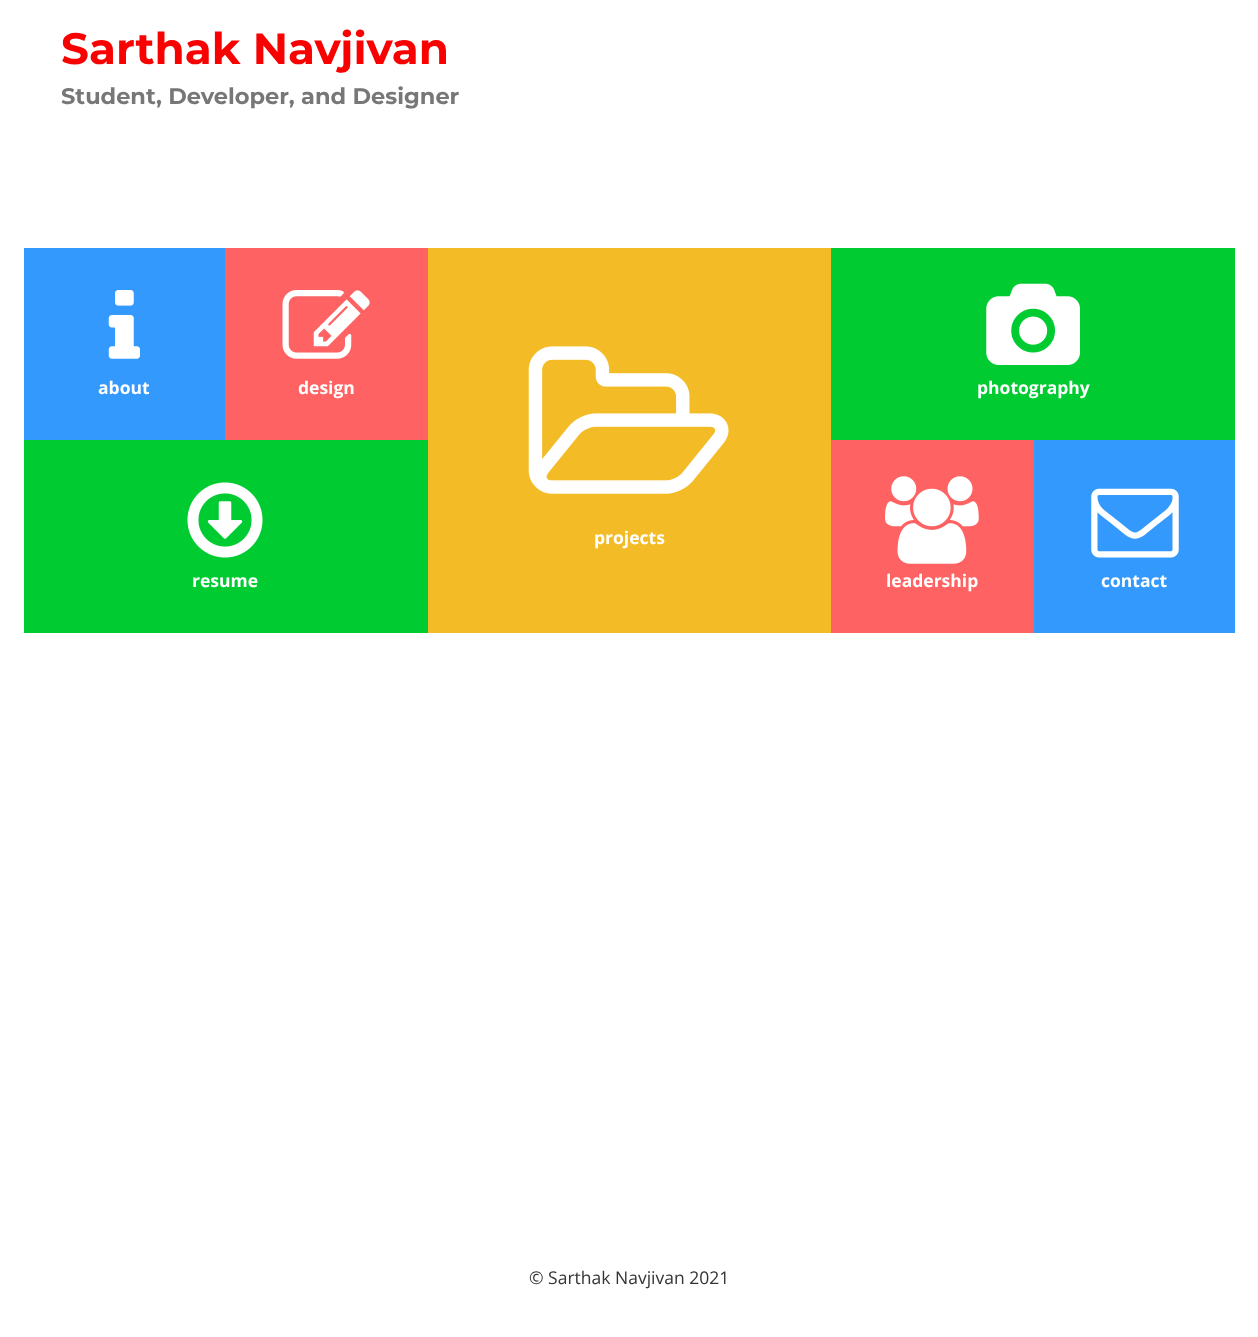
<svg xmlns="http://www.w3.org/2000/svg" width="1258" height="1337">
<style>
.a{font:bold 43.75px Montserrat;fill:#f90101}
.b{font:bold 22.5px Montserrat;fill:#777}
.c{font:bold 17.5px Open Sans;fill:#fff}
.d{font:17.5px Open Sans;fill:#333}
</style>
<rect width="100%" height="100%" fill="#fff"/>
<path fill="#3399fd" d="M24 248h201v192H24z"/>
<image href="1.png" x="108" y="290" width="32" height="69"/>
<path fill="#fe6262" d="M225 248h203v192H225z"/>
<image href="2.png" x="282" y="290" width="88" height="69"/>
<path fill="#00cc31" d="M24 440h404v193H24z"/>
<image href="3.png" x="187" y="482" width="76" height="76"/>
<path fill="#f3bc27" d="M428 248h403v385H428z"/>
<image href="4.png" x="528" y="346" width="201" height="148"/>
<path fill="#00cc31" d="M831 248h404v192H831z"/>
<image href="5.png" x="986" y="283" width="94" height="82"/>
<path fill="#fe6262" d="M831 440h203v193H831z"/>
<image href="6.png" x="885" y="476" width="94" height="88"/>
<path fill="#3399fd" d="M1034 440h201v193H1034z"/>
<image href="7.png" x="1091" y="488" width="88" height="70"/>
<text class="a" x="61" y="64">Sarthak Navjivan</text>
<text class="b" x="61" y="104">Student, Developer, and Designer</text>
<text class="c" x="98" y="394">about</text>
<text class="c" x="298" y="394">design</text>
<text class="c" x="192" y="587">resume</text>
<text class="c" x="594" y="544">projects</text>
<text class="c" x="977" y="394">photography</text>
<text class="c" x="886" y="587">leadership</text>
<text class="c" x="1101" y="587">contact</text>
<text class="d" x="529" y="1284">© Sarthak Navjivan 2021</text>
</svg>
